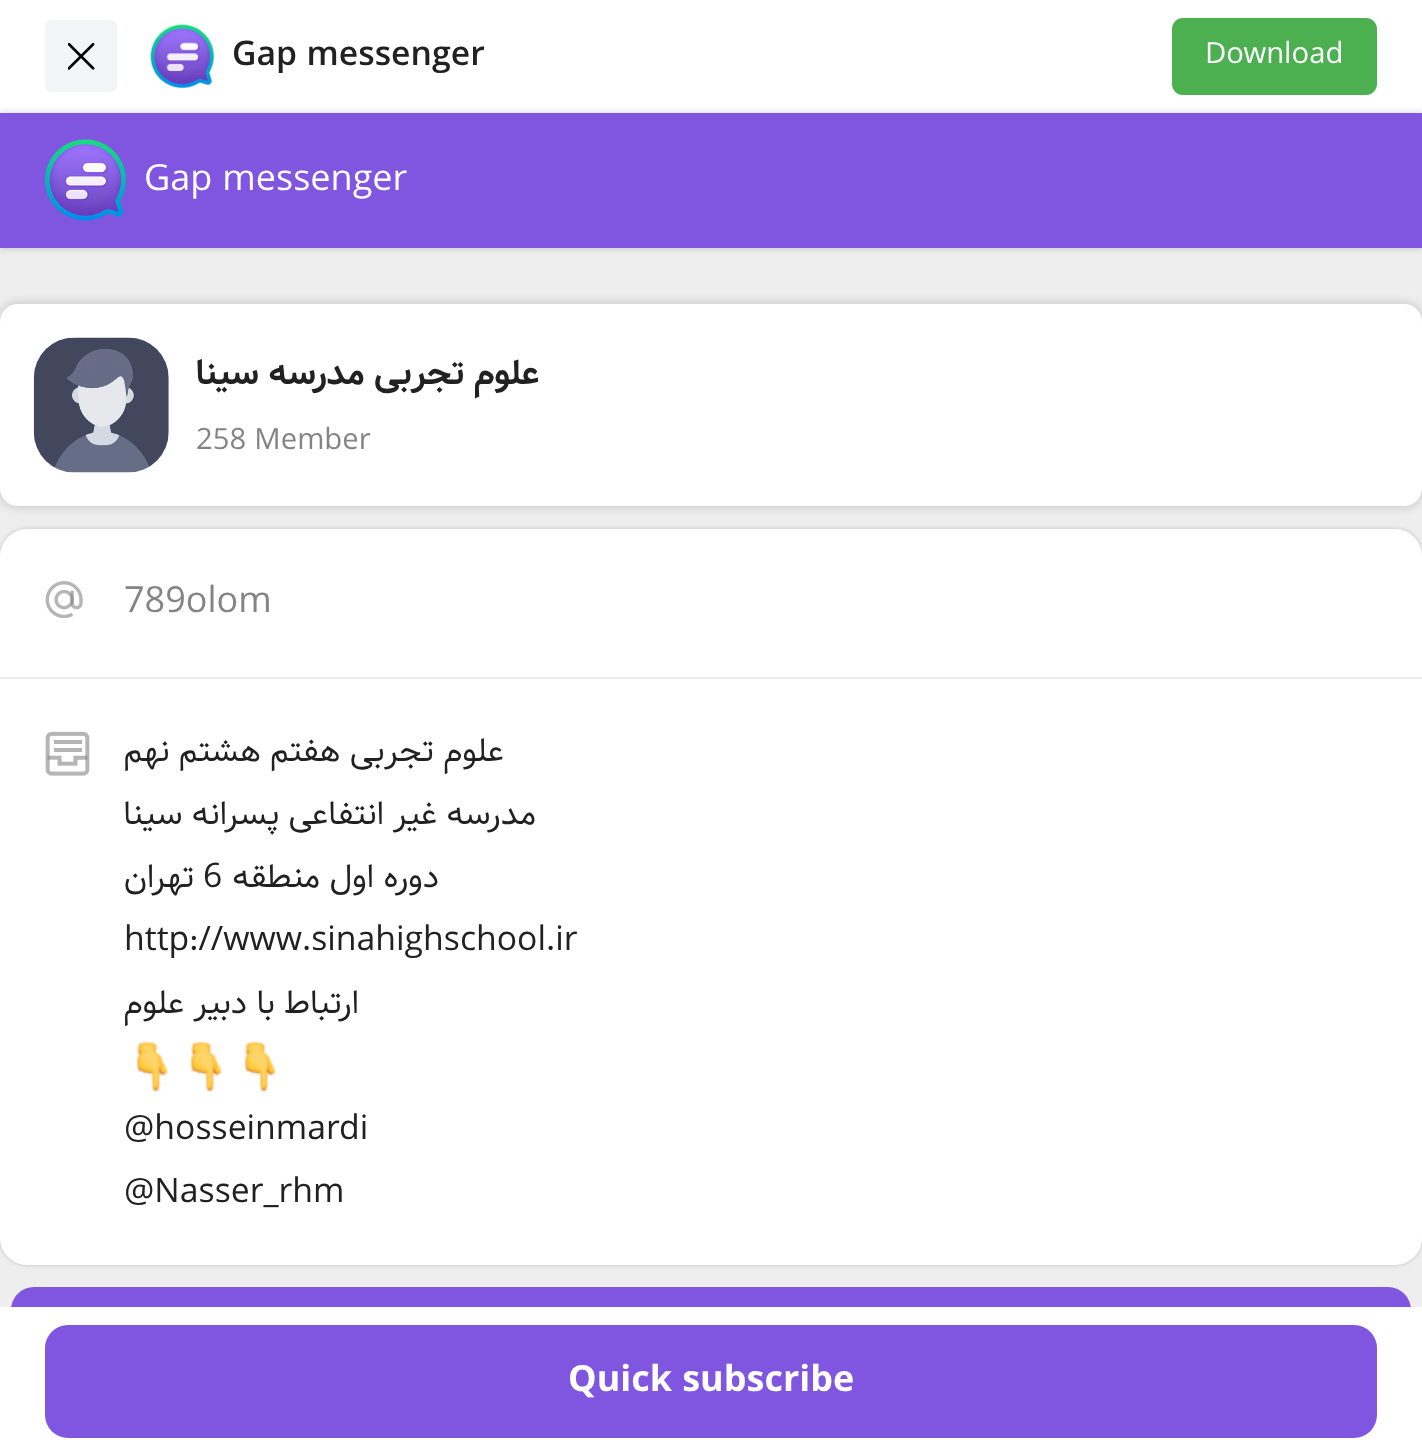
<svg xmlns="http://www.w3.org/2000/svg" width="1422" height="1454">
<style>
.a{font:500 33.75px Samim;fill:#212121}
.b{font:29.25px Samim;fill:#fff}
.c{font:36px Samim;fill:#fff}
.d{font:bold 36px Samim;direction:rtl;fill:#212121}
.e{font:29.25px Samim;fill:#848385}
.f{font:36px Samim;fill:#848385}
.g{font:33.75px Samim;direction:rtl;fill:#212121}
.h{font:33.75px Samim;fill:#212121}
.i{font:bold 36px Samim;fill:#fff}
</style>
<rect width="100%" height="100%" fill="#eee"/>
<path fill="#fff" d="M0 0h1422v113H0z"/>
<rect fill="#f4f5f7" x="45" y="20" width="72" height="72" rx="7"/>
<image href="1.png" x="68" y="43" width="27" height="27"/>
<image href="2.png" x="150" y="24" width="64" height="64"/>
<rect fill="#4cb050" x="1172" y="18" width="205" height="77" rx="11"/>
<path fill="#00000033" filter="blur(3.5px)" d="M0 113h1422v135H0z"/>
<path fill="#8056e0" d="M0 113h1422v135H0z"/>
<image href="3.png" x="45" y="139" width="81" height="82"/>
<rect fill="#00000033" filter="blur(5.5px)" y="304" width="1422" height="202" rx="18"/>
<rect fill="#fff" y="304" width="1422" height="202" rx="18"/>
<image href="4.png" x="33" y="337" width="136" height="136"/>
<rect fill="#0000002e" filter="blur(2px)" y="529" width="1422" height="736" rx="27"/>
<rect fill="#fff" y="529" width="1422" height="736" rx="27"/>
<path fill="#ebebeb" d="M0 677h1422v2H0z"/>
<image href="5.png" x="45" y="581" width="38" height="38"/>
<image href="6.png" x="45" y="731" width="45" height="45"/>
<image href="7.png" x="135" y="1041" width="33" height="52"/>
<image href="7.png" x="189" y="1041" width="33" height="52"/>
<image href="8.png" x="243" y="1041" width="33" height="52"/>
<rect fill="#8056e0" x="11" y="1287" width="1400" height="86" rx="23"/>
<path fill="#fff" d="M0 1307h1422v147H0z"/>
<rect fill="#8056e0" x="45" y="1325" width="1332" height="113" rx="23"/>
<text class="a" x="232" y="65">Gap messenger</text>
<text class="b" x="1205" y="63">Download</text>
<text class="c" x="144" y="190">Gap messenger</text>
<text class="d" x="539" y="384">علوم تجربی مدرسه سینا</text>
<text class="e" x="196" y="449">258 Member</text>
<text class="f" x="124" y="612">789olom</text>
<text class="g" x="504" y="761">علوم تجربی هفتم هشتم نهم</text>
<text class="g" x="536" y="824">مدرسه غیر انتفاعی پسرانه سینا</text>
<text class="g" x="194" y="887">تهران</text>
<text class="h" x="203" y="887">6</text>
<text class="g" x="439" y="887">دوره اول منطقه</text>
<text class="h" x="124" y="950">http://www.sinahighschool.ir</text>
<text class="g" x="359" y="1013">ارتباط با دبیر علوم</text>
<text class="h" x="124" y="1139">@hosseinmardi</text>
<text class="h" x="124" y="1202">@Nasser_rhm</text>
<text class="i" x="568" y="1391">Quick subscribe</text>
</svg>
